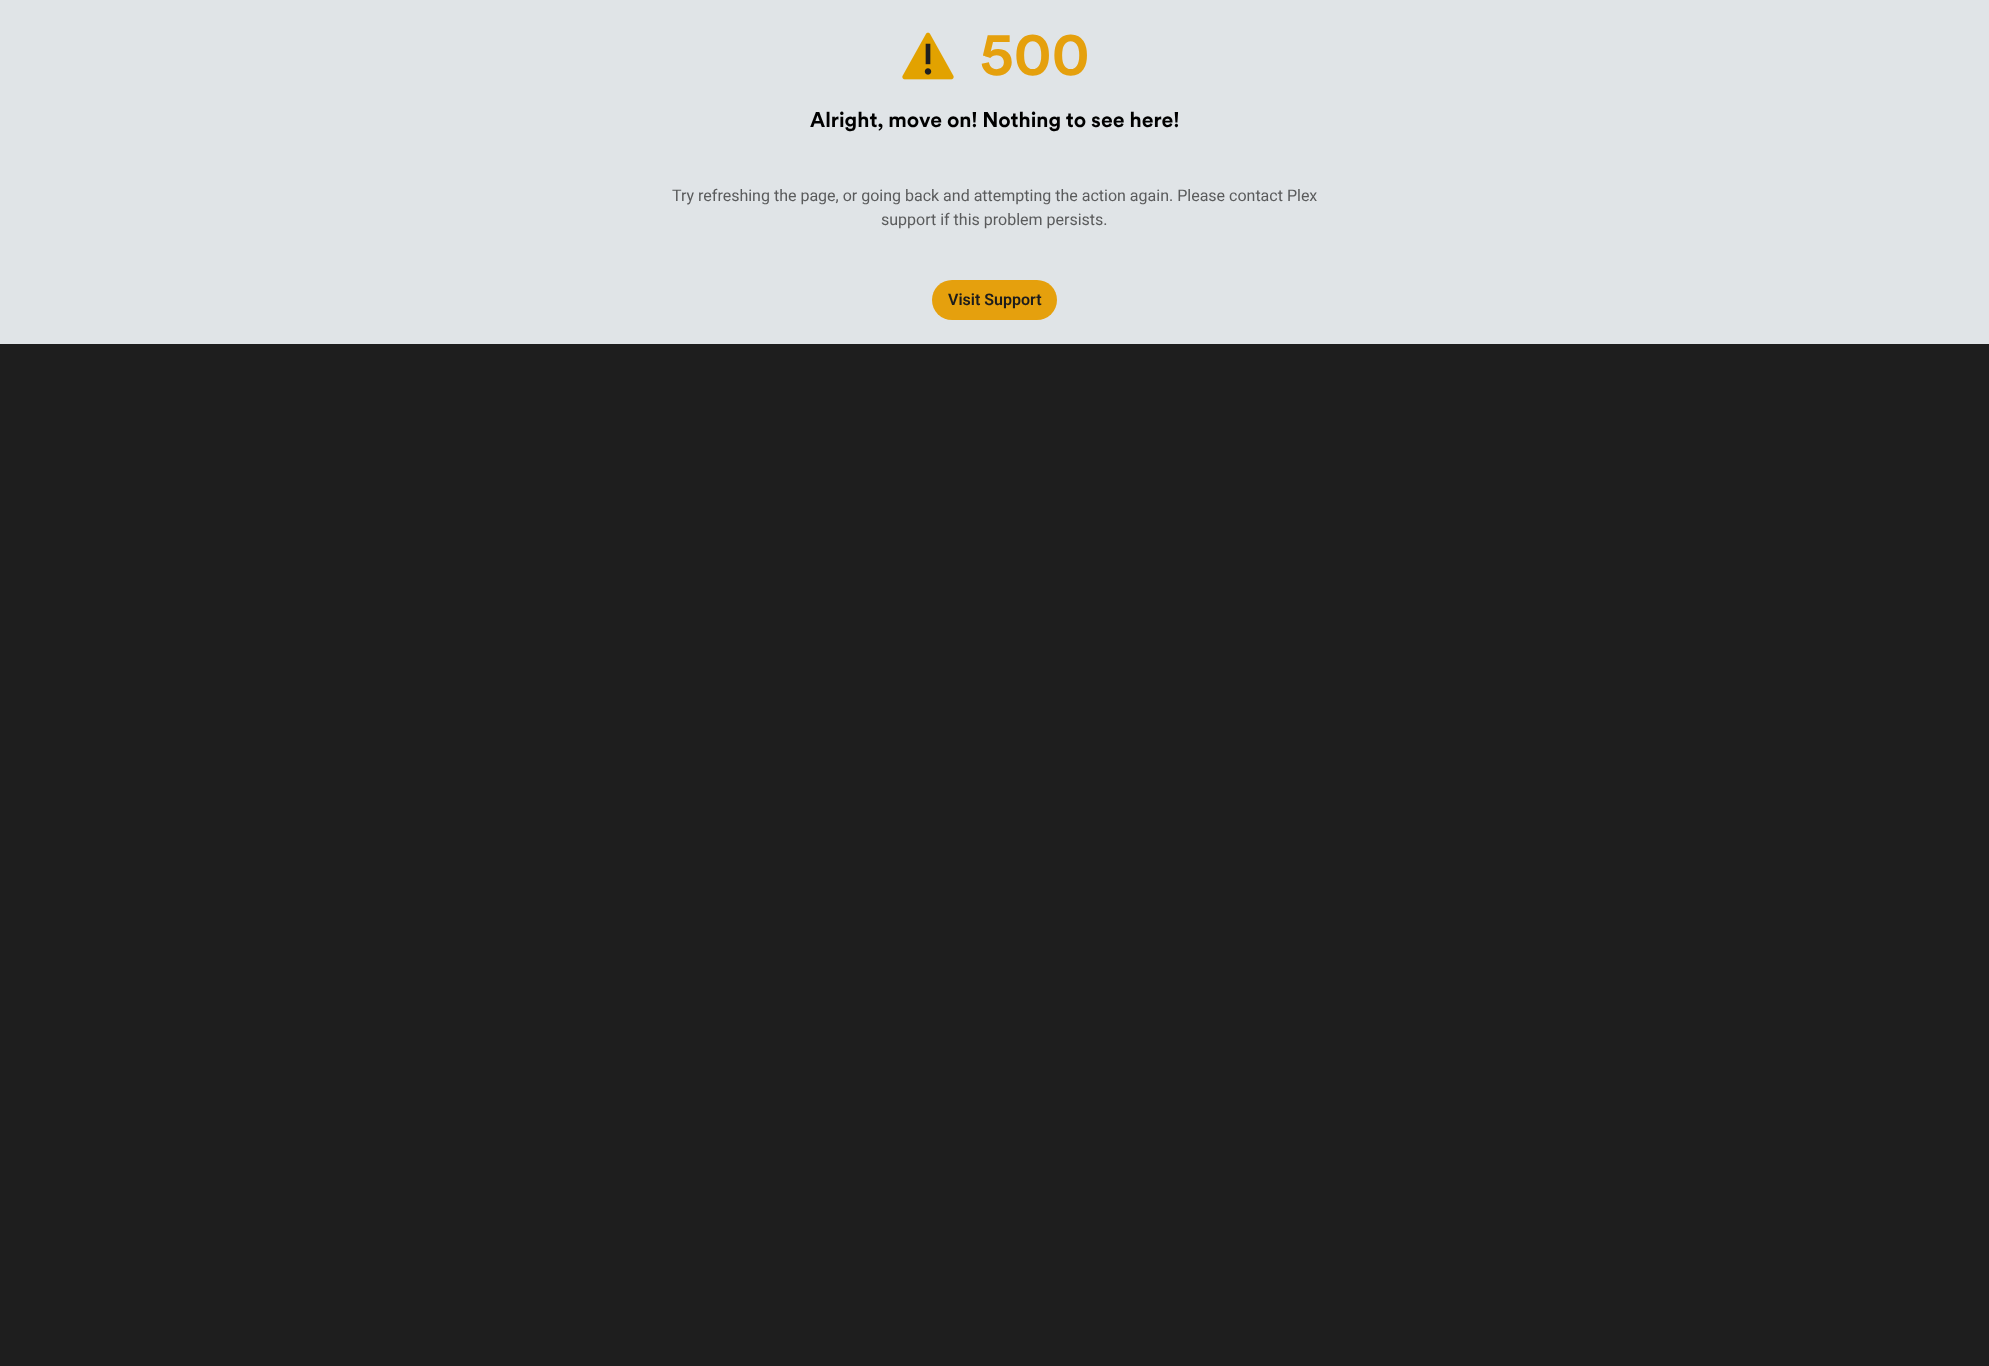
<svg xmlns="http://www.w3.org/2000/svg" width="1989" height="1366">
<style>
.a{font:bold 56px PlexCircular;fill:#e5a00d}
.b{font:bold 21px PlexCircular;fill:#000}
.c{font:16px Roboto;fill:#5a5b5c}
.d{font:600 16px Roboto;fill:#1c1c1c}
</style>
<rect width="100%" height="100%" fill="#1e1e1e"/>
<path fill="#e0e4e7" d="M0 0h1989v344H0z"/>
<image href="1.png" x="902" y="32" width="52" height="48"/>
<rect fill="#e5a00d" x="932" y="280" width="125" height="40" rx="20"/>
<text class="a" x="980" y="75">500</text>
<text class="b" x="810" y="127">Alright, move on! Nothing to see here!</text>
<text class="c" x="672" y="201">Try refreshing the page, or going back and attempting the action again. Please contact Plex</text>
<text class="c" x="881" y="225">support if this problem persists.</text>
<text class="d" x="948" y="305">Visit Support</text>
</svg>
